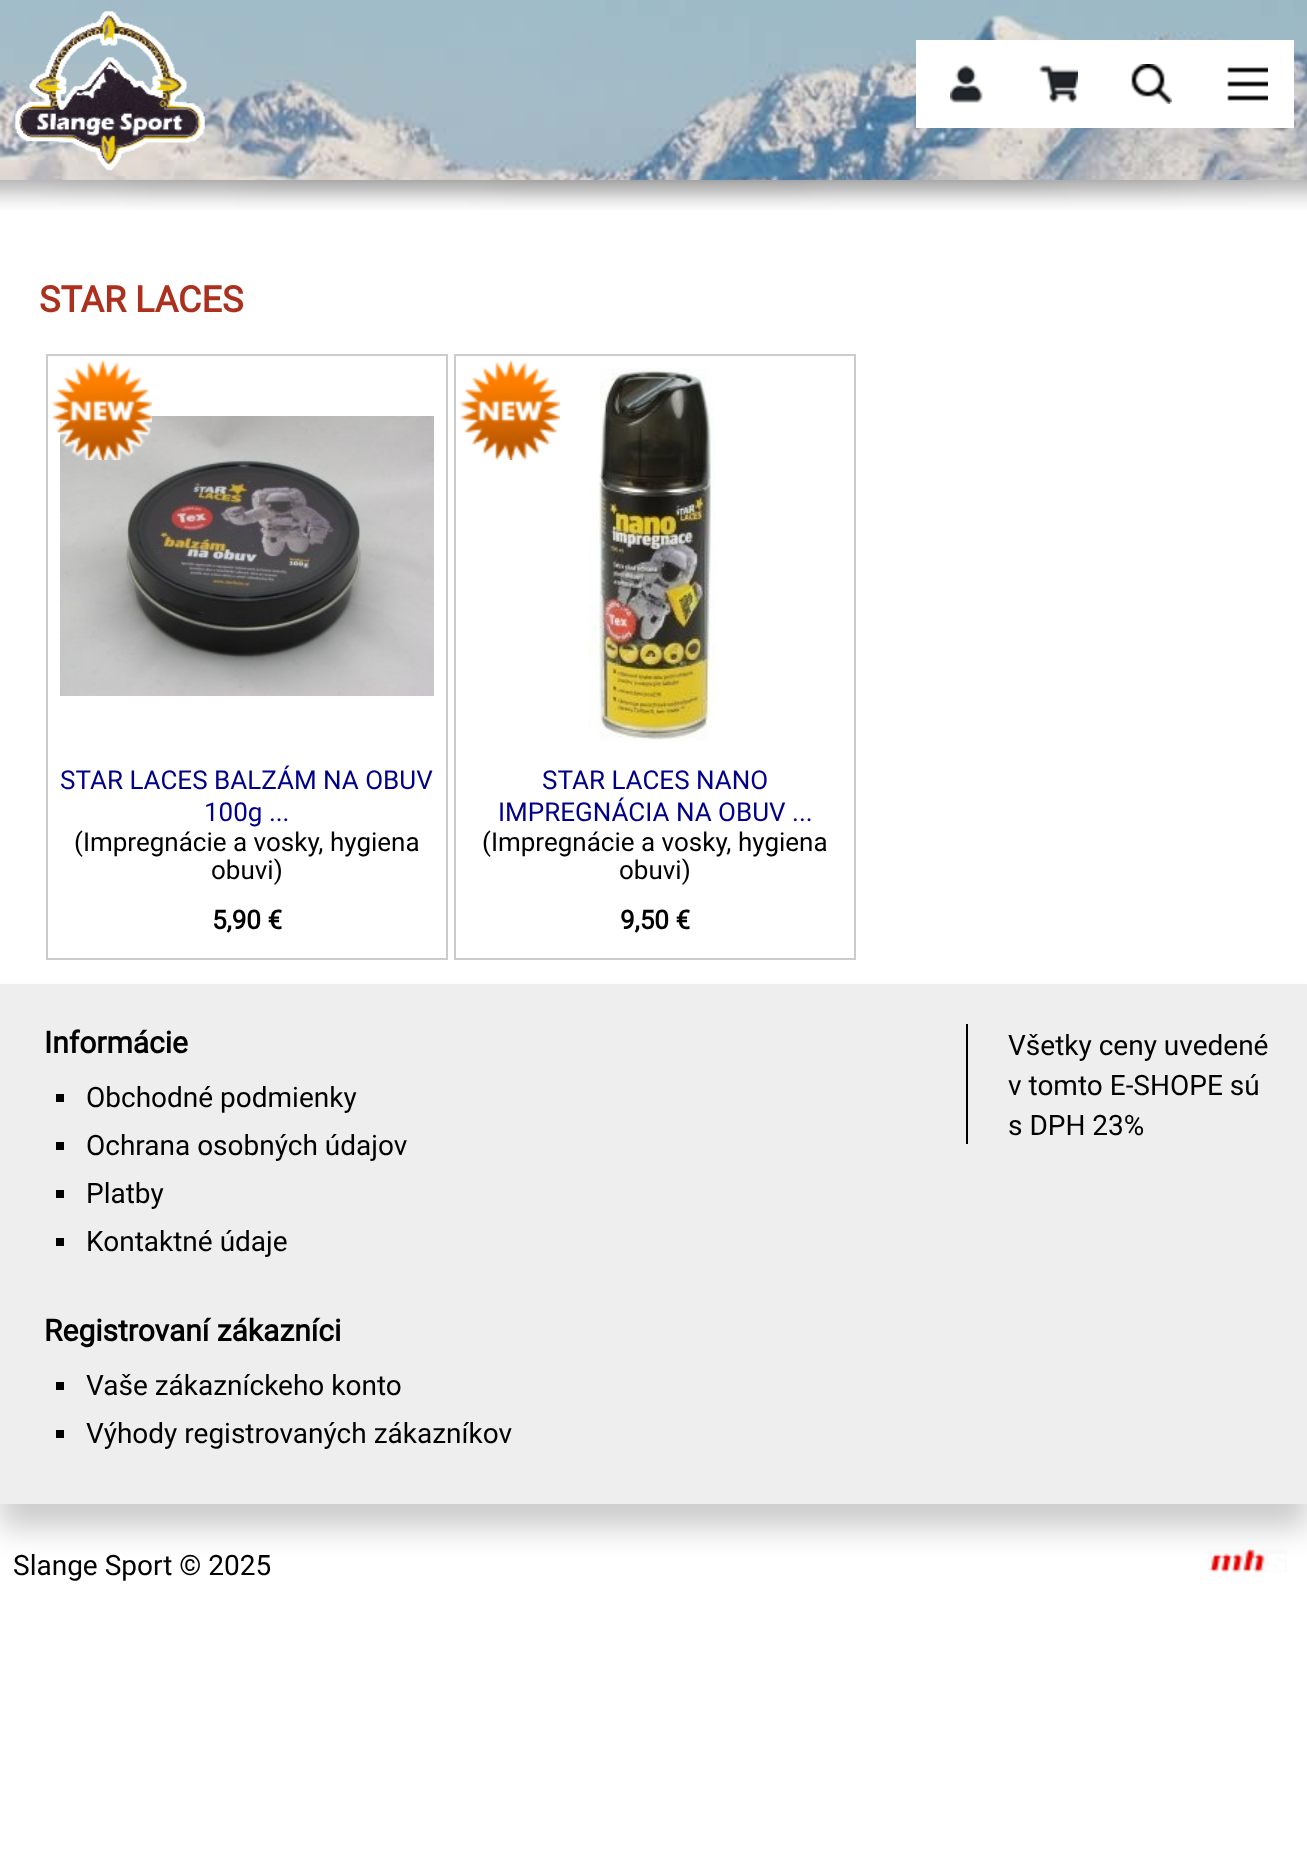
<svg xmlns="http://www.w3.org/2000/svg" width="1307" height="1852">
<style>
.a{font:bold 36px Roboto;fill:#ab301e}
.b{font:26px Roboto;fill:#008}
.c{font:26px Roboto;fill:#000}
.d{font:bold 26px Roboto;fill:#000}
.e{font:bold 30px Roboto;fill:#000}
.f{font:28px Roboto;fill:#000}
</style>
<rect width="100%" height="100%" fill="#fff"/>
<image href="1.png" x="0" y="0" width="1307" height="180"/>
<image href="2.png" x="15" y="11" width="190" height="160"/>
<path fill="#fff" d="M916 40h378v88H916z"/>
<image href="3.png" x="950" y="65" width="33" height="38"/>
<image href="4.png" x="1039" y="65" width="39" height="38"/>
<image href="5.png" x="1131" y="64" width="41" height="40"/>
<image href="6.png" x="1227" y="67" width="41" height="34"/>
<image href="7.png" x="0" y="180" width="1307" height="30"/>
<path fill="none" stroke="#ccc" stroke-width="2" d="M47 355h400v604H47z"/>
<image href="9.png" x="60" y="416" width="374" height="280"/>
<image href="8.png" x="52" y="360" width="100" height="100"/>
<path fill="none" stroke="#ccc" stroke-width="2" d="M455 355h400v604H455z"/>
<image href="10.png" x="460" y="360" width="100" height="100"/>
<image href="11.png" x="588" y="368" width="128" height="374"/>
<path fill="#00000033" filter="blur(15px)" d="M0 1008h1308v520H0z"/>
<path fill="#eee" d="M0 984h1307v520H0z"/>
<path fill="#000" d="M56 1094h8v8H56z"/>
<path fill="#000" d="M56 1142h8v8H56z"/>
<path fill="#000" d="M56 1190h8v8H56z"/>
<path fill="#000" d="M56 1238h8v8H56z"/>
<path fill="#000" d="M56 1382h8v8H56z"/>
<path fill="#000" d="M56 1430h8v8H56z"/>
<path fill="#000" d="M966 1024h2v120H966z"/>
<image href="12.png" x="1208" y="1549" width="79" height="24"/>
<text class="a" x="39" y="312">STAR LACES</text>
<text class="b" x="60" y="789">STAR LACES BALZÁM NA OBUV</text>
<text class="b" x="204" y="821">100g ...</text>
<text class="c" x="74" y="851">(Impregnácie a vosky, hygiena</text>
<text class="c" x="211" y="879">obuvi)</text>
<text class="d" x="212" y="929">5,90 €</text>
<text class="b" x="542" y="789">STAR LACES NANO</text>
<text class="b" x="498" y="821">IMPREGNÁCIA NA OBUV ...</text>
<text class="c" x="482" y="851">(Impregnácie a vosky, hygiena</text>
<text class="c" x="619" y="879">obuvi)</text>
<text class="d" x="620" y="929">9,50 €</text>
<text class="e" x="44" y="1053">Informácie</text>
<text class="f" x="86" y="1107">Obchodné podmienky</text>
<text class="f" x="86" y="1155">Ochrana osobných údajov</text>
<text class="f" x="86" y="1203">Platby</text>
<text class="f" x="86" y="1251">Kontaktné údaje</text>
<text class="e" x="44" y="1341">Registrovaní zákazníci</text>
<text class="f" x="86" y="1395">Vaše zákazníckeho konto</text>
<text class="f" x="86" y="1443">Výhody registrovaných zákazníkov</text>
<text class="f" x="1008" y="1055">Všetky ceny uvedené</text>
<text class="f" x="1008" y="1095">v tomto E-SHOPE sú</text>
<text class="f" x="1008" y="1135">s DPH 23%</text>
<text class="f" x="13" y="1575">Slange Sport © 2025</text>
</svg>
